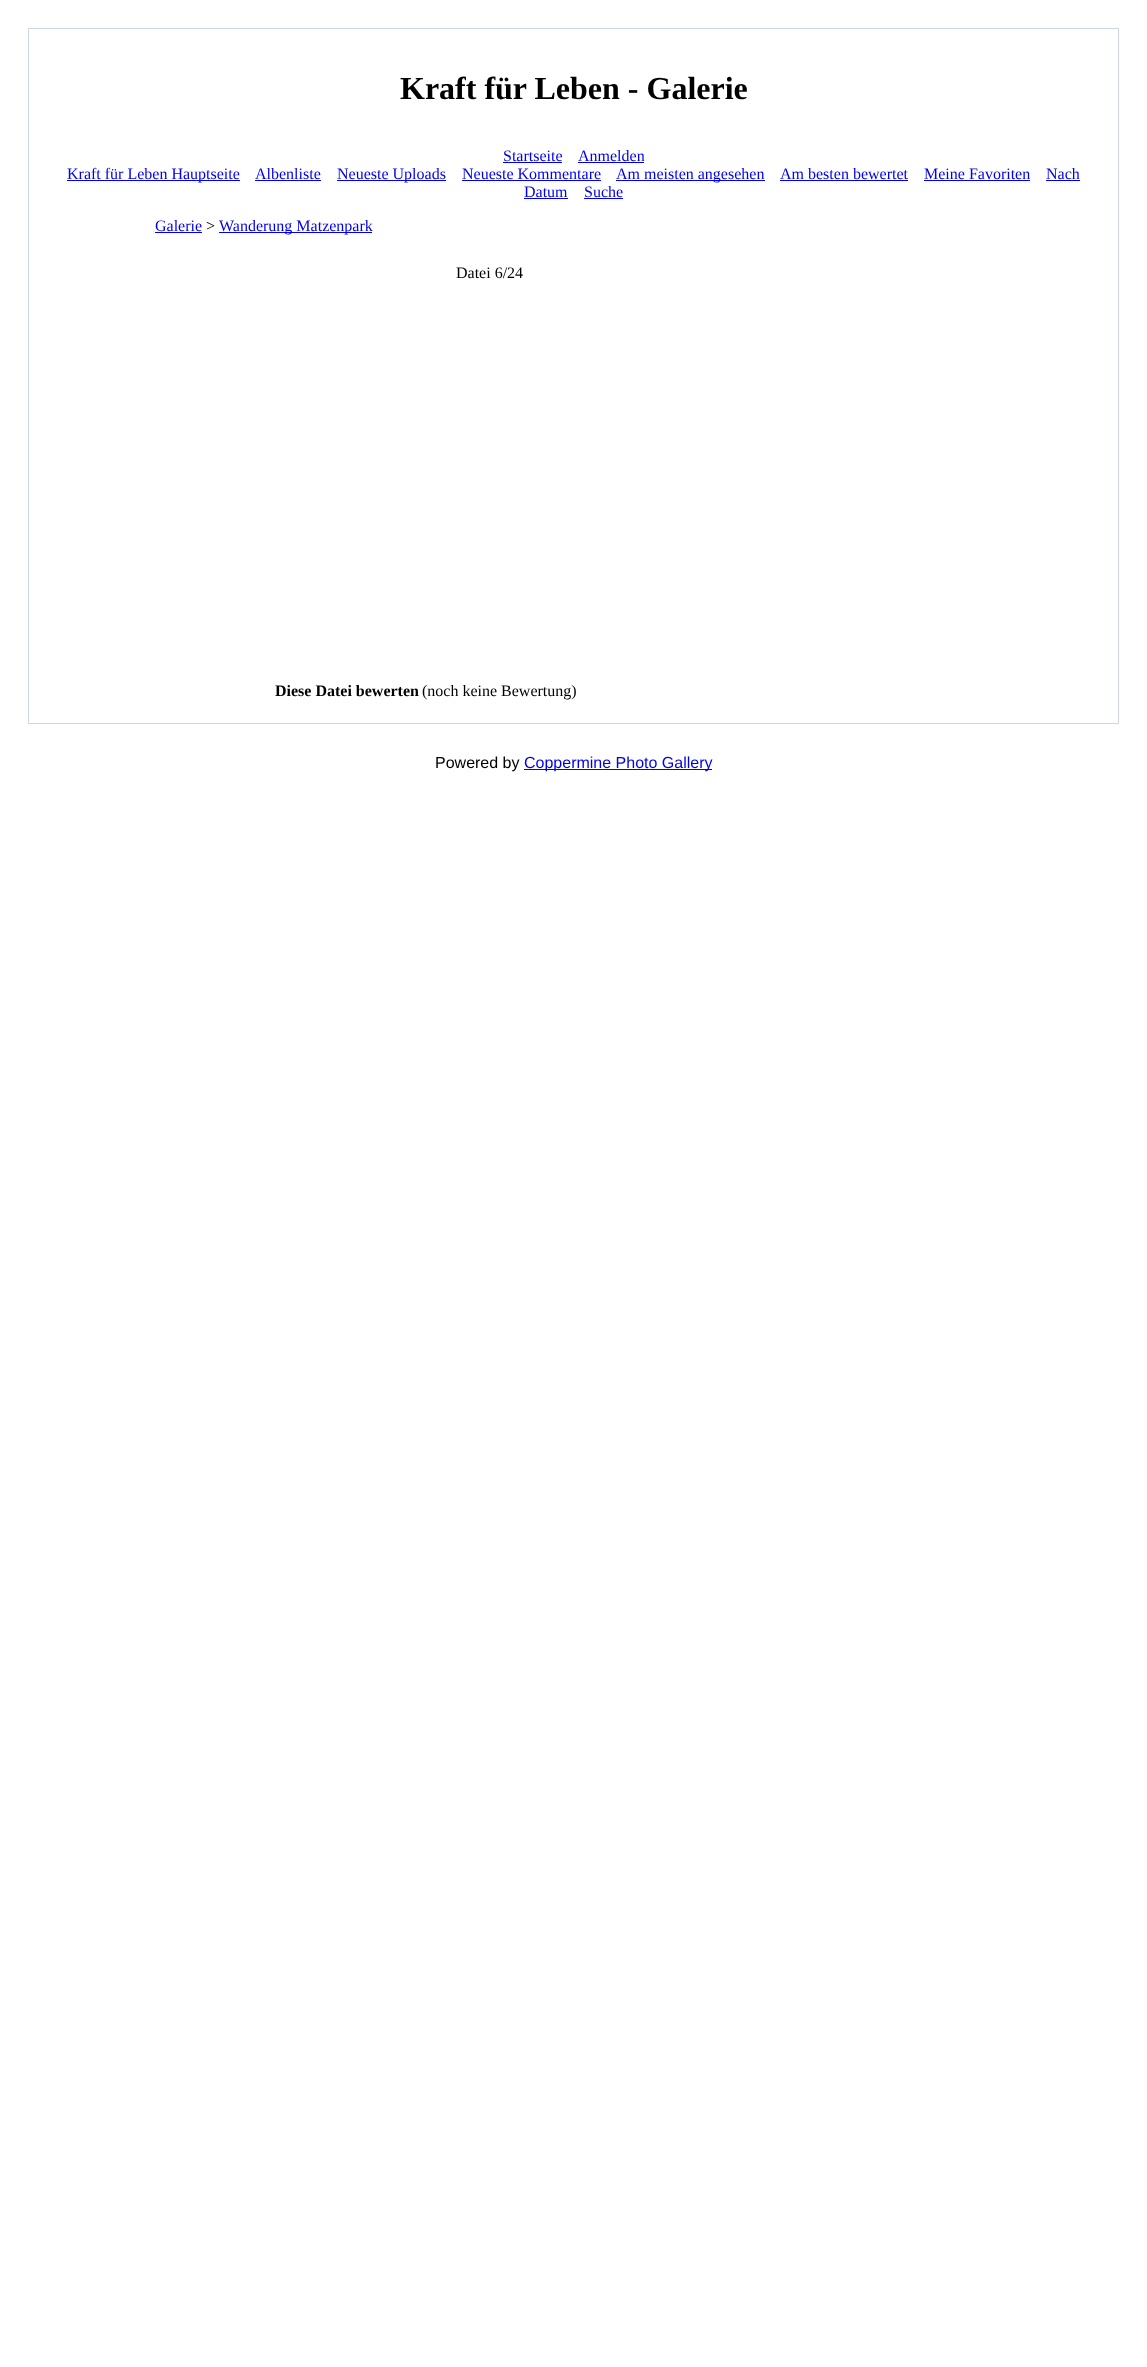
<svg xmlns="http://www.w3.org/2000/svg" width="1147" height="2367">
<style>
.a{font:bold 32px Liberation Serif;fill:#000}
.b{font:16px Liberation Serif;fill:#00e}
.c{font:16px Liberation Serif;fill:#000}
.d{font:bold 16px Liberation Serif;fill:#000}
.e{font:16px Liberation Sans;fill:#000}
.f{font:16px Liberation Sans;fill:#00e}
</style>
<rect width="100%" height="100%" fill="#fff"/>
<path fill="none" stroke="#ccd7e0" d="M28.5 28.5h1090v695H28.5z"/>
<path fill="#00e" d="M503 162h59v1H503z"/>
<path fill="#00e" d="M578 162h66v1H578z"/>
<path fill="#00e" d="M67 180h173v1H67z"/>
<path fill="#00e" d="M255 180h66v1H255z"/>
<path fill="#00e" d="M337 180h109v1H337z"/>
<path fill="#00e" d="M462 180h139v1H462z"/>
<path fill="#00e" d="M616 180h149v1H616z"/>
<path fill="#00e" d="M780 180h128v1H780z"/>
<path fill="#00e" d="M924 180h106v1H924z"/>
<path fill="#00e" d="M1046 180h34v1H1046z"/>
<path fill="#00e" d="M524 198h44v1H524z"/>
<path fill="#00e" d="M584 198h39v1H584z"/>
<path fill="#00e" d="M155 232h47v1H155z"/>
<path fill="#00e" d="M219 232h153v1H219z"/>
<path fill="#00e" d="M524 769h188v1H524z"/>
<text class="a" x="400" y="99">Kraft für Leben - Galerie</text>
<text class="b" x="503" y="161">Startseite</text>
<text class="b" x="578" y="161">Anmelden</text>
<text class="b" x="67" y="179">Kraft für Leben Hauptseite</text>
<text class="b" x="255" y="179">Albenliste</text>
<text class="b" x="337" y="179">Neueste Uploads</text>
<text class="b" x="462" y="179">Neueste Kommentare</text>
<text class="b" x="616" y="179">Am meisten angesehen</text>
<text class="b" x="780" y="179">Am besten bewertet</text>
<text class="b" x="924" y="179">Meine Favoriten</text>
<text class="b" x="1046" y="179">Nach</text>
<text class="b" x="524" y="197">Datum</text>
<text class="b" x="584" y="197">Suche</text>
<text class="b" x="155" y="231">Galerie</text>
<text class="c" x="206" y="231">&gt;</text>
<text class="b" x="219" y="231">Wanderung Matzenpark</text>
<text class="c" x="456" y="278">Datei 6/24</text>
<text class="d" x="275" y="696">Diese Datei bewerten</text>
<text class="c" x="422" y="696">(noch keine Bewertung)</text>
<text class="e" x="435" y="768">Powered by</text>
<text class="f" x="524" y="768">Coppermine Photo Gallery</text>
</svg>
